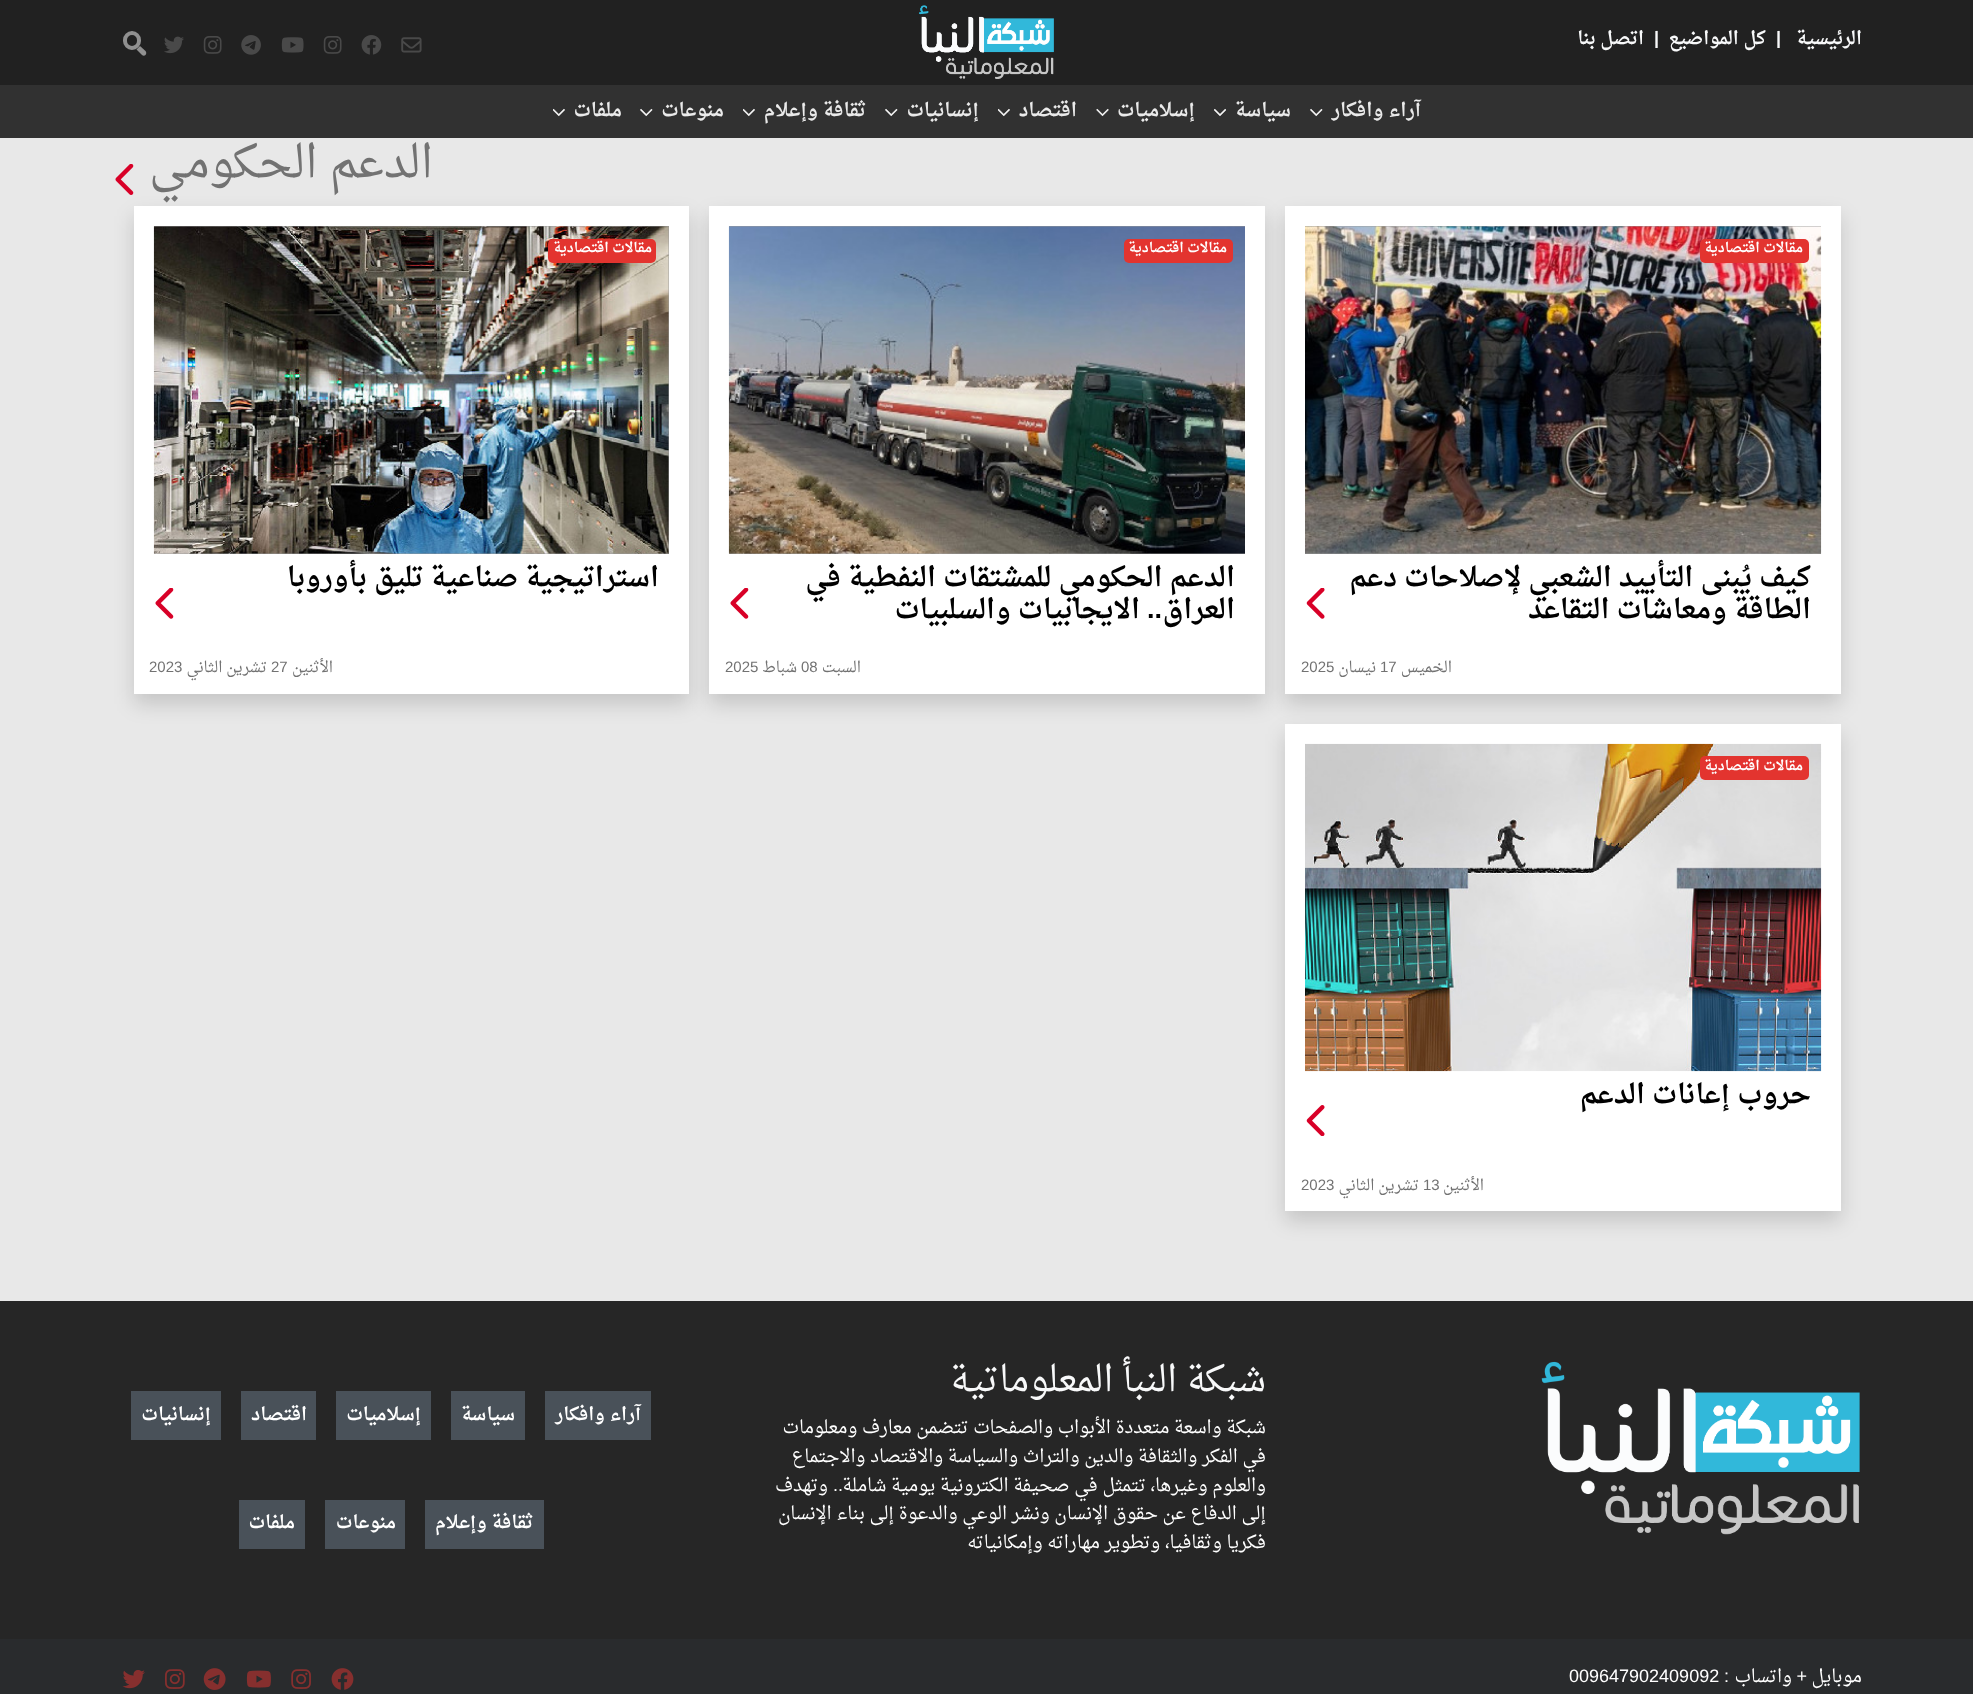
<svg xmlns="http://www.w3.org/2000/svg" width="1973" height="1694">
<style>
.a{font:bold 18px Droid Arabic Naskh;direction:rtl;fill:#f8f9fa}
.b{font:bold 18px Liberation Sans;fill:#f8f9fa}
.c{font:bold 18.75px Droid Arabic Naskh;direction:rtl;fill:#eaeaea}
.d{font:45px Droid Arabic Naskh;direction:rtl;fill:#727272}
.e{font:bold 13.5px Droid Arabic Naskh;direction:rtl;fill:#fff}
.f{font:bold 27px Droid Arabic Naskh;direction:rtl;fill:#000}
.g{font:15px Droid Arabic Naskh;direction:rtl;fill:#727272}
.h{font:15px Liberation Sans;fill:#727272}
.i{font:bold 27px Liberation Sans;direction:rtl;fill:#000}
.j{font:36px Droid Arabic Naskh;direction:rtl;fill:#f8f9fa}
.k{font:18px Droid Arabic Naskh;direction:rtl;fill:#fff}
.l{font:18px Liberation Sans;direction:rtl;fill:#fff}
.m{font:bold 18px Droid Arabic Naskh;direction:rtl;fill:#fff}
.n{font:18px Liberation Sans;fill:#fff}
</style>
<rect width="100%" height="100%" fill="#e8e8e8"/>
<path fill="#212121" d="M0 0h1973v85H0z"/>
<image href="1.png" x="919" y="5" width="135" height="74"/>
<image href="2.png" x="401" y="37" width="21" height="16"/>
<image href="3.png" x="361" y="35" width="21" height="20"/>
<image href="4.png" x="323" y="36" width="19" height="18"/>
<image href="5.png" x="281" y="37" width="23" height="16"/>
<image href="6.png" x="241" y="35" width="20" height="20"/>
<image href="4.png" x="203" y="36" width="19" height="18"/>
<image href="7.png" x="164" y="36" width="20" height="18"/>
<rect fill="none" stroke="#909090" stroke-width="4" x="125" y="33" width="14" height="15" rx="7"/>
<path fill="#909090" d="M140 46l5.5 5c1 1 1 3 0 4c-1 1-2.5 1-3.5 0l-5.5-5.5z"/>
<path fill="#313131" d="M0 85h1973v53H0z"/>
<image href="8.png" x="1310" y="108" width="13" height="9"/>
<image href="9.png" x="1214" y="108" width="12" height="8"/>
<image href="10.png" x="1096" y="108" width="13" height="9"/>
<image href="11.png" x="998" y="108" width="12" height="9"/>
<image href="8.png" x="885" y="108" width="13" height="9"/>
<image href="11.png" x="743" y="108" width="12" height="9"/>
<image href="8.png" x="640" y="108" width="13" height="9"/>
<image href="11.png" x="553" y="108" width="12" height="9"/>
<image href="12.png" x="115" y="164" width="19" height="31"/>
<path fill="#00000026" filter="blur(10px)" d="M1285 216h556v488H1285z"/>
<path fill="#fff" d="M1285 206h556v488H1285z"/>
<path fill="#9b9b9b" d="M1305 226h516v328H1305z"/>
<image href="13.png" x="1305" y="226" width="517" height="328"/>
<rect fill="#e3342f" x="1700" y="239" width="109" height="24" rx="5"/>
<image href="14.png" x="1306" y="588" width="19" height="31"/>
<path fill="#00000026" filter="blur(10px)" d="M709 216h556v488H709z"/>
<path fill="#fff" d="M709 206h556v488H709z"/>
<path fill="#9b9b9b" d="M729 226h516v328H729z"/>
<image href="15.png" x="728" y="226" width="517" height="328"/>
<rect fill="#e3342f" x="1124" y="239" width="109" height="24" rx="5"/>
<image href="16.png" x="730" y="588" width="19" height="31"/>
<path fill="#00000026" filter="blur(10px)" d="M134 216h555v488H134z"/>
<path fill="#fff" d="M134 206h555v488H134z"/>
<path fill="#9b9b9b" d="M154 226h515v328H154z"/>
<image href="17.png" x="153" y="226" width="516" height="328"/>
<rect fill="#e3342f" x="548" y="239" width="108" height="24" rx="5"/>
<image href="16.png" x="155" y="588" width="19" height="31"/>
<path fill="#00000026" filter="blur(10px)" d="M1285 734h556v487H1285z"/>
<path fill="#fff" d="M1285 724h556v487H1285z"/>
<image href="18.png" x="1305" y="743" width="517" height="329"/>
<rect fill="#e3342f" x="1700" y="756" width="109" height="24" rx="5"/>
<image href="19.png" x="1306" y="1105" width="19" height="31"/>
<path fill="#262626" d="M0 1301h1973v338H0z"/>
<image href="20.png" x="1541" y="1361" width="319" height="174"/>
<path fill="#495159" d="M545 1391h106v49H545z"/>
<path fill="#495159" d="M451 1391h74v49H451z"/>
<path fill="#495159" d="M336 1391h95v49H336z"/>
<path fill="#495159" d="M241 1391h75v49H241z"/>
<path fill="#495159" d="M131 1391h90v49H131z"/>
<path fill="#495159" d="M425 1500h119v49H425z"/>
<path fill="#495159" d="M325 1500h80v49H325z"/>
<path fill="#495159" d="M239 1500h66v49H239z"/>
<path fill="#292b2d" d="M0 1639h1973v55H0z"/>
<image href="21.png" x="331" y="1668" width="23" height="22"/>
<image href="22.png" x="291" y="1669" width="20" height="20"/>
<image href="23.png" x="246" y="1670" width="25" height="18"/>
<image href="24.png" x="203" y="1668" width="23" height="22"/>
<image href="25.png" x="165" y="1669" width="20" height="20"/>
<image href="26.png" x="122" y="1670" width="23" height="19"/>
<text class="a" x="1862" y="44">الرئيسية</text>
<text class="b" x="1776" y="44">|</text>
<text class="a" x="1766" y="44">كل المواضيع</text>
<text class="b" x="1654" y="44">|</text>
<text class="a" x="1644" y="44">اتصل بنا</text>
<text class="c" x="1421" y="116">آراء وافكار</text>
<text class="c" x="1291" y="116">سياسة</text>
<text class="c" x="1195" y="116">إسلاميات</text>
<text class="c" x="1077" y="116">اقتصاد</text>
<text class="c" x="979" y="116">إنسانيات</text>
<text class="c" x="866" y="116">ثقافة وإعلام</text>
<text class="c" x="724" y="116">منوعات</text>
<text class="c" x="622" y="116">ملفات</text>
<text class="d" x="433" y="177">الدعم الحكومي</text>
<text class="e" x="1803" y="252">مقالات اقتصادية</text>
<text class="f" x="1811" y="586">كيف يُبنى التأييد الشعبي لإصلاحات دعم</text>
<text class="f" x="1811" y="618">الطاقة ومعاشات التقاعد</text>
<text class="g" x="1452" y="672">الخميس</text>
<text class="h" x="1380" y="672">17</text>
<text class="g" x="1376" y="672">نيسان</text>
<text class="h" x="1301" y="672">2025</text>
<text class="e" x="1227" y="252">مقالات اقتصادية</text>
<text class="f" x="1235" y="586">الدعم الحكومي للمشتقات النفطية في</text>
<text class="f" x="1235" y="618">العراق</text>
<text class="i" x="1162" y="618">..</text>
<text class="f" x="1140" y="618">الايجابيات والسلبيات</text>
<text class="g" x="861" y="672">السبت</text>
<text class="h" x="801" y="672">08</text>
<text class="g" x="797" y="672">شباط</text>
<text class="h" x="725" y="672">2025</text>
<text class="e" x="652" y="252">مقالات اقتصادية</text>
<text class="f" x="659" y="586">استراتيجية صناعية تليق بأوروبا</text>
<text class="g" x="333" y="672">الأثنين</text>
<text class="h" x="271" y="672">27</text>
<text class="g" x="267" y="672">تشرين الثاني</text>
<text class="h" x="149" y="672">2023</text>
<text class="e" x="1803" y="770">مقالات اقتصادية</text>
<text class="f" x="1811" y="1103">حروب إعانات الدعم</text>
<text class="g" x="1484" y="1190">الأثنين</text>
<text class="h" x="1423" y="1190">13</text>
<text class="g" x="1419" y="1190">تشرين الثاني</text>
<text class="h" x="1301" y="1190">2023</text>
<text class="j" x="1266" y="1391">شبكة النبأ المعلوماتية</text>
<text class="k" x="1266" y="1433">شبكة واسعة متعددة الأبواب والصفحات تتضمن معارف ومعلومات</text>
<text class="k" x="1266" y="1462">في الفكر والثقافة والدين والتراث والسياسة والاقتصاد والاجتماع</text>
<text class="k" x="1266" y="1491">والعلوم وغيرها، تتمثل في صحيفة الكترونية يومية شاملة</text>
<text class="l" x="843" y="1491">..</text>
<text class="k" x="828" y="1491">وتهدف</text>
<text class="k" x="1266" y="1519">إلى الدفاع عن حقوق الإنسان ونشر الوعي والدعوة إلى بناء الإنسان</text>
<text class="k" x="1266" y="1548">فكريا وثقافيا، وتطوير مهاراته وإمكانياته</text>
<text class="m" x="641" y="1420">آراء وافكار</text>
<text class="m" x="515" y="1420">سياسة</text>
<text class="m" x="421" y="1420">إسلاميات</text>
<text class="m" x="307" y="1420">اقتصاد</text>
<text class="m" x="211" y="1420">إنسانيات</text>
<text class="m" x="533" y="1528">ثقافة وإعلام</text>
<text class="m" x="396" y="1528">منوعات</text>
<text class="m" x="295" y="1528">ملفات</text>
<text class="k" x="1862" y="1682">موبايل</text>
<text class="l" x="1807" y="1682">+</text>
<text class="k" x="1792" y="1682">واتساب</text>
<text class="l" x="1729" y="1682">:</text>
<text class="n" x="1569" y="1682">009647902409092</text>
</svg>
